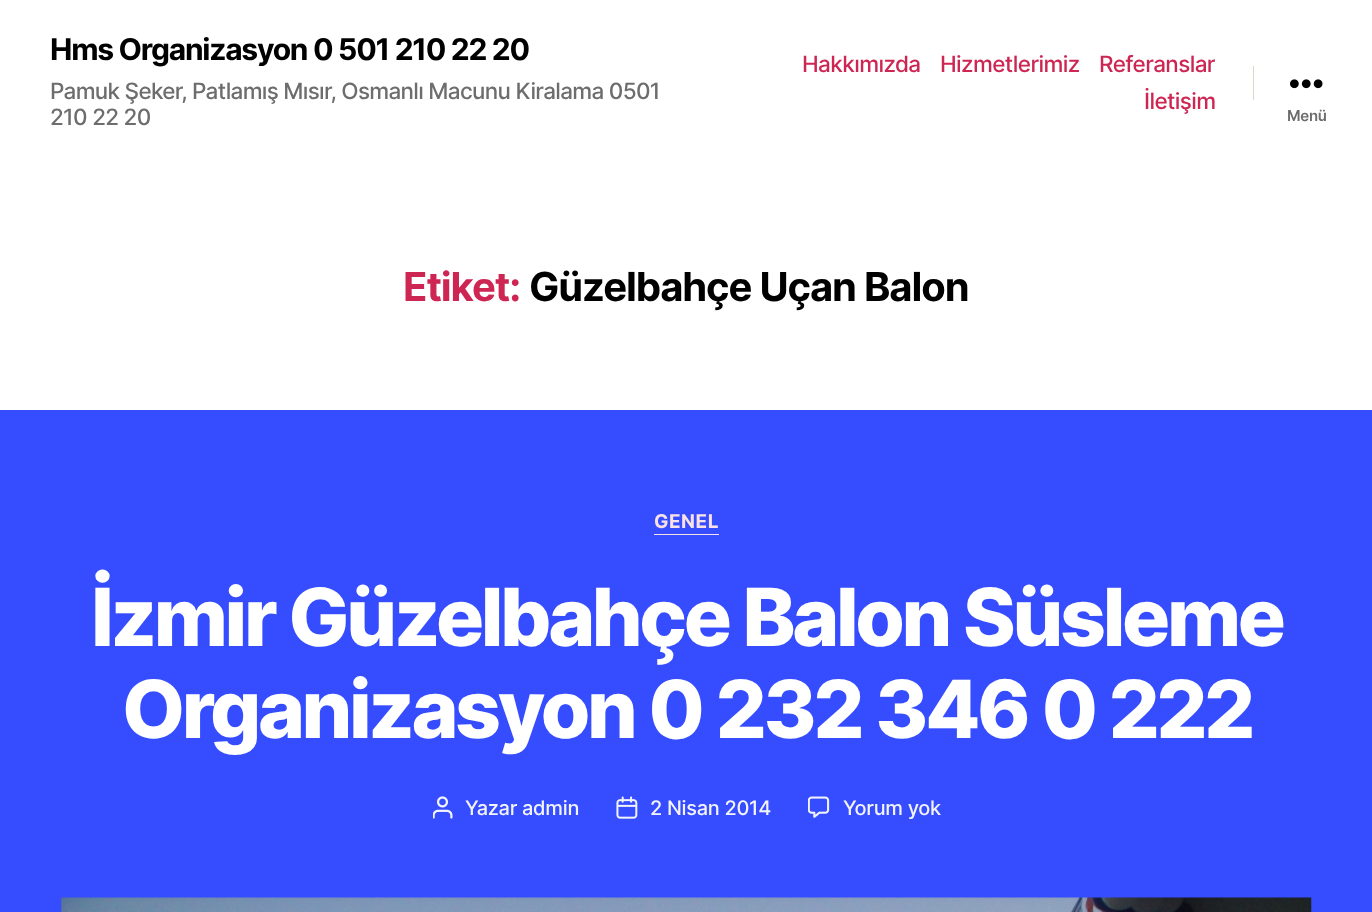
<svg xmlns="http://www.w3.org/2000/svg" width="1372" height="912">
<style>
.a{font:bold 30px Inter;letter-spacing:-1.25px;fill:#000}
.b{font:500 22.5px Inter;letter-spacing:-0.7px;fill:#6d6d6d}
.c{font:500 22.5px Inter;letter-spacing:-0.6px;fill:#cd2653}
.d{font:600 15px Inter;letter-spacing:-0.3px;fill:#6d6d6d}
.e{font:bold 40px Inter;letter-spacing:-1.1px;fill:#cd2653}
.f{font:bold 40px Inter;letter-spacing:-1.1px;fill:#000}
.g{font:bold 19px Inter;letter-spacing:0.5px;fill:#f8e2e7}
.h{font:800 80px Inter;letter-spacing:-3.3px;fill:#fff}
.i{font:500 20px Inter;letter-spacing:-0.3px;fill:#f3f4fb}
</style>
<rect width="100%" height="100%" fill="#354dff"/>
<path fill="#fff" d="M0 0h1372v410H0z"/>
<path fill="#dcd7ca" d="M1253 66h1v34H1253z"/>
<image href="1.png" x="1290" y="79" width="33" height="10"/>
<path fill="#f8e2e7" d="M654 534h65v1H654z"/>
<image href="2.png" x="433" y="796" width="20" height="23"/>
<image href="3.png" x="616" y="796" width="22" height="23"/>
<image href="4.png" x="808" y="796" width="22" height="22"/>
<image href="5.png" x="61" y="897" width="1251" height="15"/>
<text class="a" x="50" y="60">Hms Organizasyon 0 501 210 22 20</text>
<text class="b" x="50" y="99">Pamuk Şeker, Patlamış Mısır, Osmanlı Macunu Kiralama 0501</text>
<text class="b" x="50" y="125">210 22 20</text>
<text class="c" x="802" y="72">Hakkımızda</text>
<text class="c" x="940" y="72">Hizmetlerimiz</text>
<text class="c" x="1099" y="72">Referanslar</text>
<text class="c" x="1144" y="109">İletişim</text>
<text class="d" x="1287" y="121">Menü</text>
<text class="e" x="403" y="301">Etiket:</text>
<text class="f" x="529" y="301">Güzelbahçe Uçan Balon</text>
<text class="g" x="654" y="528">GENEL</text>
<text class="h" x="91" y="646">İzmir Güzelbahçe Balon Süsleme</text>
<text class="h" x="122" y="738">Organizasyon 0 232 346 0 222</text>
<text class="i" x="465" y="815">Yazar admin</text>
<text class="i" x="650" y="815">2 Nisan 2014</text>
<text class="i" x="843" y="815">Yorum yok</text>
</svg>
